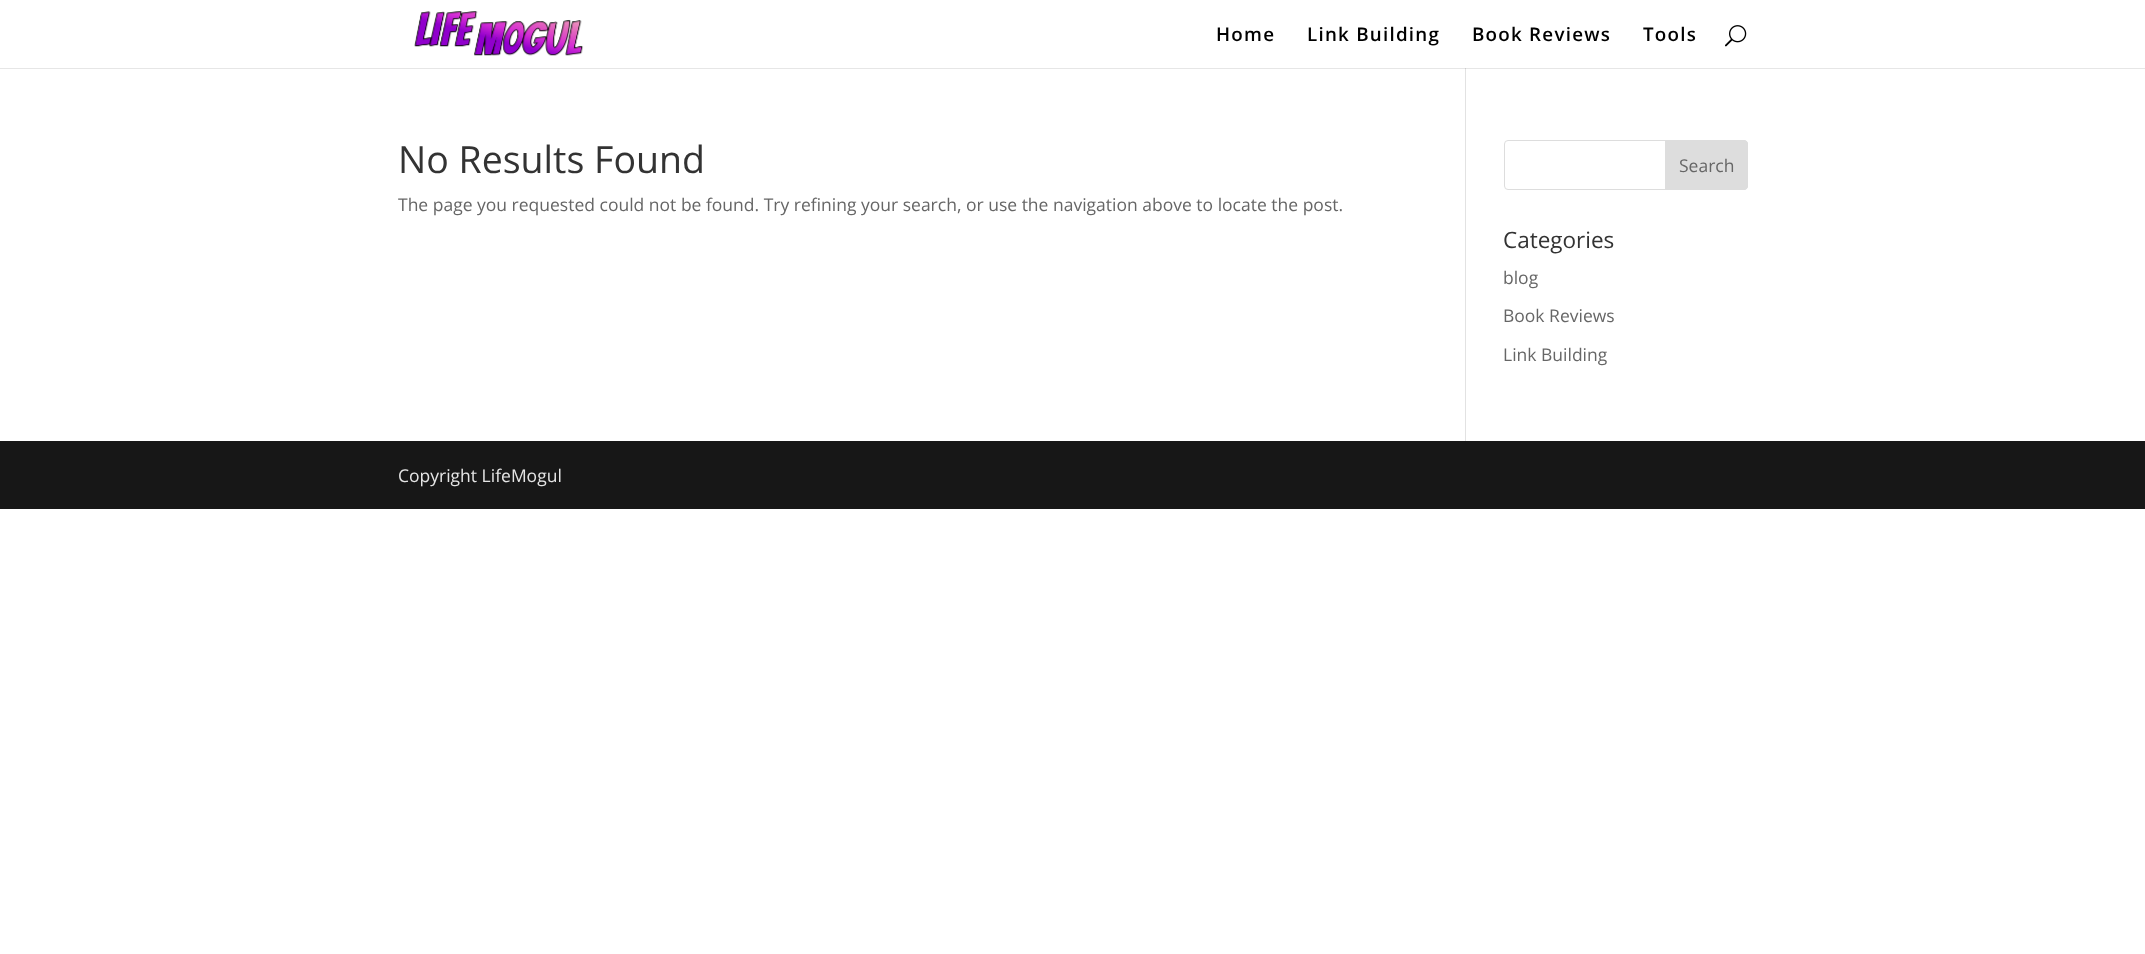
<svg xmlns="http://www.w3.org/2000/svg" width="2145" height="954">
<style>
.a{font:600 18.75px Open Sans;letter-spacing:1.25px;fill:#000}
.b{font:37.5px Open Sans;fill:#333}
.c{font:17.5px Open Sans;fill:#666}
.d{font:22.5px Open Sans;fill:#333}
.e{font:17.5px Open Sans;fill:#e5e5e5}
</style>
<rect width="100%" height="100%" fill="#fff"/>
<path fill="#e6e6e6" d="M0 68h2145v1H0z"/>
<image href="1.png" x="414" y="11" width="170" height="45"/>
<image href="2.png" x="1725" y="25" width="22" height="22"/>
<path fill="#e2e2e2" d="M1465 68h1v373H1465z"/>
<path fill="#cbcbcb" d="M1465 68h1v1H1465z"/>
<rect fill="none" stroke="#ddd" x="1504.5" y="140.5" width="243" height="49" rx="3.5"/>
<path fill="#ddd" stroke="#ddd" d="M1665.5 140.5h78.5c2 0 3.5 1.5 3.5 3.5v42c0 2-1.5 3.5-3.5 3.5h-78.5z"/>
<path fill="#171717" d="M0 441h2145v68H0z"/>
<text class="a" x="1216" y="41">Home</text>
<text class="a" x="1307" y="41">Link Building</text>
<text class="a" x="1472" y="41">Book Reviews</text>
<text class="a" x="1643" y="41">Tools</text>
<text class="b" x="398" y="173">No Results Found</text>
<text class="c" x="398" y="211">The page you requested could not be found. Try refining your search, or use the navigation above to locate the post.</text>
<text class="c" x="1679" y="172">Search</text>
<text class="d" x="1503" y="248">Categories</text>
<text class="c" x="1503" y="284">blog</text>
<text class="c" x="1503" y="322">Book Reviews</text>
<text class="c" x="1503" y="361">Link Building</text>
<text class="e" x="398" y="482">Copyright LifeMogul</text>
</svg>
